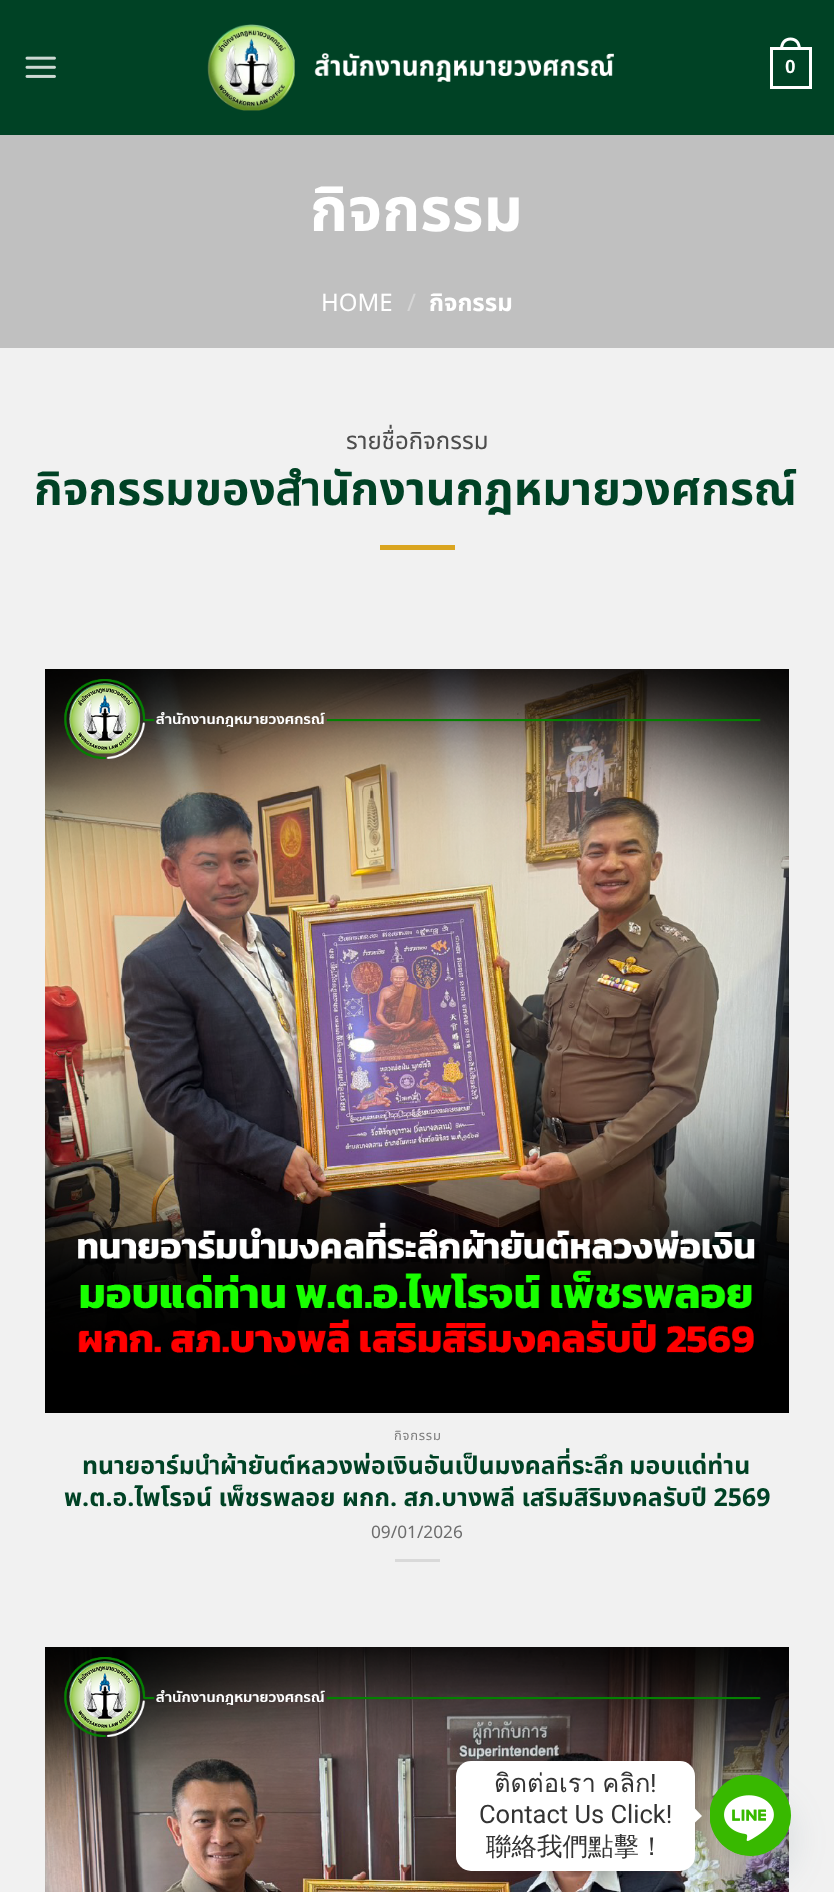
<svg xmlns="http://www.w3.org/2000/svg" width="834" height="1892">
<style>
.a{font:bold 19px Liberation Sans;fill:#fff}
.b{font:bold 61px Noto Sans Thai;fill:#fff}
.c{font:24px Noto Sans Thai;fill:#fff}
.d{font:24px Noto Sans Thai;fill:#d6d6d6}
.e{font:bold 24px Noto Sans Thai;fill:#fff}
.f{font:24px Noto Sans Thai;fill:#4c4c4c}
.g{font:bold 46.1px Noto Sans Thai;fill:#004225}
.h{font:13px Noto Sans Thai;letter-spacing:0.75px;fill:#7e7e7e}
.i{font:bold 24.85px Noto Sans Thai;fill:#004225}
.j{font:17.25px Noto Sans Thai;fill:#6d6d6d}
.k{font:25.5px Loma;fill:#333}
.l{font:25.5px Roboto;fill:#333}
.m{font:500 25.5px WenQuanYi Zen Hei;fill:#333}
</style>
<rect width="100%" height="100%" fill="#c0c0c0"/>
<path fill="#004225" d="M0 0h834v135H0z"/>
<image href="1.png" x="25" y="56" width="31" height="22"/>
<image href="2.png" x="207" y="24" width="407" height="87"/>
<path fill="none" stroke="#fff" stroke-width="3" d="M771.5 48.5h39v39H771.5z"/>
<path fill="#fff" fill-rule="evenodd" d="M790.5 37.5c7 0 10.5 5.5 10.5 12h-21c0-6.5 3.5-12 10.5-12zm0 3c5.5 0 7.5 4.5 7.5 9h-15c0-4.5 2-9 7.5-9z"/>
<path fill="#f1f1f1" d="M0 348h834v1544H0z"/>
<path fill="#daa520" d="M380 545h75v5H380z"/>
<image href="3.png" x="45" y="669" width="744" height="744"/>
<path fill="#d9d9d9" d="M395 1559h45v3H395z"/>
<image href="4.png" x="45" y="1647" width="744" height="245"/>
<rect fill="#49687e29" filter="blur(18px)" x="710" y="1799" width="81" height="81" rx="40.5"/>
<circle fill="#38b900" cx="750.5" cy="1815.5" r="40.5"/>
<image href="5.png" x="710" y="1775" width="81" height="81"/>
<rect fill="#00000026" filter="blur(6px)" x="456" y="1763" width="239" height="109" rx="15"/>
<rect fill="#fff" x="456" y="1761" width="239" height="110" rx="15"/>
<path fill="#fff" d="M694.5 1823v-15l7.5 8z"/>
<text class="a" x="785" y="73">0</text>
<text class="b" x="310" y="231">กิจกรรม</text>
<text class="c" x="321" y="311">HOME</text>
<text class="d" x="407" y="311">/</text>
<text class="e" x="429" y="311">กิจกรรม</text>
<text class="f" x="346" y="449">รายชื่อกิจกรรม</text>
<text class="g" x="34" y="505">กิจกรรมของสำนักงานกฎหมายวงศกรณ์</text>
<text class="h" x="394" y="1440">กิจกรรม</text>
<text class="i" x="82" y="1474" word-spacing="-1">ทนายอาร์มนำผ้ายันต์หลวงพ่อเงินอันเป็นมงคลที่ระลึก มอบแด่ท่าน</text>
<text class="i" x="64" y="1506">พ.ต.อ.ไพโรจน์ เพ็ชรพลอย ผกก. สภ.บางพลี เสริมสิริมงคลรับปี 2569</text>
<text class="j" x="371" y="1538">09/01/2026</text>
<text class="k" x="494" y="1792" word-spacing="-2">ติดต่อเรา คลิก</text>
<text class="l" x="650" y="1792">!</text>
<text class="l" x="479" y="1823">Contact Us Click!</text>
<text class="m" x="486" y="1855">聯絡我們點擊！</text>
</svg>
